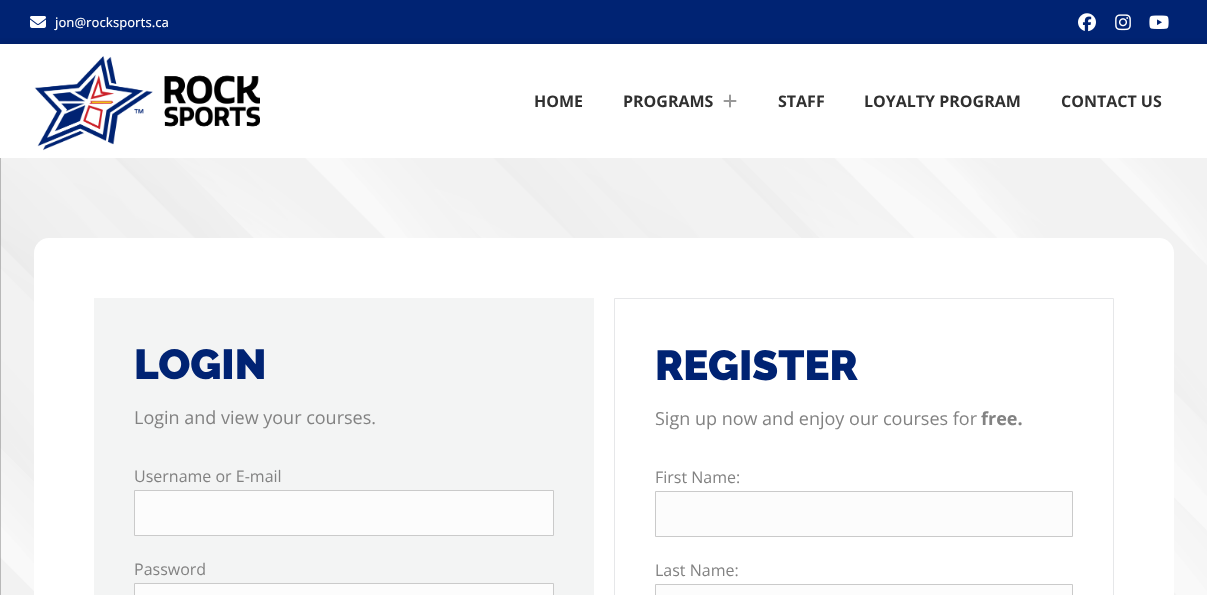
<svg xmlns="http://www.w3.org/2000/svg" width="1207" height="595">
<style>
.a{font:500 13px Open Sans;fill:#fff}
.b{font:bold 16px Open Sans;fill:#303030}
.c{font:900 42px Raleway;fill:#002373}
.d{font:18px Open Sans;fill:#828282}
.e{font:16px Open Sans;fill:#828282}
.f{font:bold 18px Open Sans;fill:#828282}
</style>
<defs>
<clipPath id="clip1"><path d="M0 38h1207v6H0z"/></clipPath>
</defs>
<rect width="100%" height="100%" fill="#fff"/>
<path fill="#002373" d="M0 0h1207v44H0z"/>
<image href="1.png" x="30" y="16" width="16" height="12"/>
<image href="2.png" x="1078" y="13" width="18" height="19"/>
<image href="3.png" x="1115" y="14" width="16" height="17"/>
<image href="4.png" x="1149" y="15" width="20" height="14"/>
<g clip-path="url(#clip1)">
<path fill="#00000026" filter="blur(5px)" d="M0 44h1207v114H0z"/>
</g>
<image href="5.png" x="34" y="56" width="226" height="95"/>
<image href="6.png" x="723" y="94" width="14" height="14"/>
<image href="7.png" x="0" y="158" width="1207" height="437"/>
<path fill="#ffffff4d" d="M0 158h1207v437H0z"/>
<rect fill="#fff" x="34" y="238" width="1140" height="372" rx="15"/>
<path fill="#f3f4f4" d="M94 298h500v297H94z"/>
<path fill="#fcfcfc" stroke="#cacaca" d="M134.5 490.5h419v45H134.5z"/>
<path fill="#fcfcfc" stroke="#cacaca" d="M134.5 583.5h419v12H134.5z"/>
<path fill="none" stroke="#e6e7e9" d="M614.5 298.5h499v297H614.5z"/>
<path fill="#fcfcfc" stroke="#cacaca" d="M655.5 491.5h417v45H655.5z"/>
<path fill="#fcfcfc" stroke="#cacaca" d="M655.5 584.5h417v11H655.5z"/>
<text class="a" x="55" y="27">jon@rocksports.ca</text>
<text class="b" x="534" y="107">HOME</text>
<text class="b" x="623" y="107">PROGRAMS</text>
<text class="b" x="778" y="107">STAFF</text>
<text class="b" x="864" y="107">LOYALTY PROGRAM</text>
<text class="b" x="1061" y="107">CONTACT US</text>
<text class="c" x="134" y="379">LOGIN</text>
<text class="d" x="134" y="424">Login and view your courses.</text>
<text class="e" x="134" y="482">Username or E-mail</text>
<text class="e" x="134" y="575">Password</text>
<text class="c" x="655" y="380">REGISTER</text>
<text class="d" x="655" y="425">Sign up now and enjoy our courses for</text>
<text class="f" x="981" y="425">free.</text>
<text class="e" x="655" y="483">First Name:</text>
<text class="e" x="655" y="576">Last Name:</text>
</svg>
